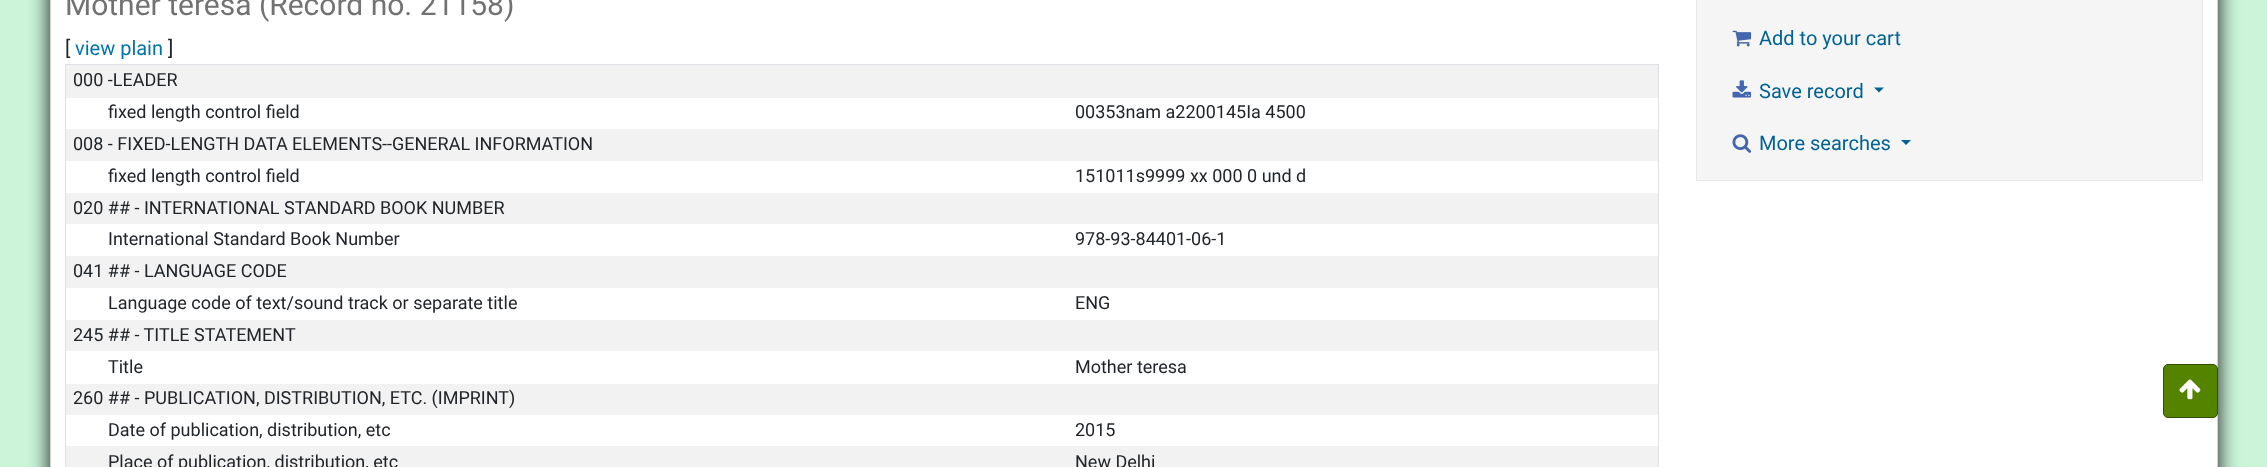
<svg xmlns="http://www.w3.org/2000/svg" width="2267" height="467">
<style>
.a{font:30px Roboto;fill:#727272}
.b{font:20px Roboto;fill:#212529}
.c{font:20px Roboto;fill:#0074ad}
.d{font:18px Roboto;fill:#212529}
.e{font:20px Roboto;fill:#006394}
</style>
<rect width="100%" height="100%" fill="#cbf4d8"/>
<path fill="#212529" filter="blur(9.5px)" d="M49 -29h2170v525H49z"/>
<path fill="#fff" stroke="#d2d2cf" d="M50.5 -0.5h2167v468H50.5z"/>
<path fill="#dee2e6" d="M65 64h1594v1H65z"/>
<path fill="#dee2e6" d="M1658 64h1v403H1658z"/>
<path fill="#dee2e6" d="M65 64h1v403H65z"/>
<path fill="#f2f2f2" d="M66 65h1592v33H66z"/>
<path fill="#f2f2f2" d="M66 129h1592v32H66z"/>
<path fill="#f2f2f2" d="M66 193h1592v31H66z"/>
<path fill="#f2f2f2" d="M66 256h1592v32H66z"/>
<path fill="#f2f2f2" d="M66 320h1592v31H66z"/>
<path fill="#f2f2f2" d="M66 384h1592v31H66z"/>
<path fill="#f2f2f2" d="M66 446h1592v21H66z"/>
<path fill="#f5f5f5" stroke="#e8e8e8" d="M1696.5 -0.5h506v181H1696.5z"/>
<image href="1.png" x="1732" y="30" width="20" height="17"/>
<image href="2.png" x="1732" y="80" width="20" height="18"/>
<path fill="#006394" d="M1874 87.5h10l-5 5z"/>
<image href="3.png" x="1732" y="134" width="20" height="19"/>
<path fill="#006394" d="M1901 140h10l-5 5z"/>
<rect fill="#548300" stroke="#335000" x="2163.5" y="364.5" width="54" height="53" rx="4.5"/>
<image href="4.png" x="2179" y="379" width="22" height="21"/>
<text class="a" x="65" y="15">Mother teresa (Record no. 21158)</text>
<text class="b" x="65" y="55">[</text>
<text class="c" x="75" y="55">view plain</text>
<text class="b" x="168" y="55">]</text>
<text class="d" x="73" y="86">000 -LEADER</text>
<text class="d" x="108" y="118">fixed length control field</text>
<text class="d" x="1075" y="118">00353nam a2200145Ia 4500</text>
<text class="d" x="73" y="150">008 - FIXED-LENGTH DATA ELEMENTS--GENERAL INFORMATION</text>
<text class="d" x="108" y="182">fixed length control field</text>
<text class="d" x="1075" y="182">151011s9999 xx 000 0 und d</text>
<text class="d" x="73" y="214">020 ## - INTERNATIONAL STANDARD BOOK NUMBER</text>
<text class="d" x="108" y="245">International Standard Book Number</text>
<text class="d" x="1075" y="245">978-93-84401-06-1</text>
<text class="d" x="73" y="277">041 ## - LANGUAGE CODE</text>
<text class="d" x="108" y="309">Language code of text/sound track or separate title</text>
<text class="d" x="1075" y="309">ENG</text>
<text class="d" x="73" y="341">245 ## - TITLE STATEMENT</text>
<text class="d" x="108" y="373">Title</text>
<text class="d" x="1075" y="373">Mother teresa</text>
<text class="d" x="73" y="404">260 ## - PUBLICATION, DISTRIBUTION, ETC. (IMPRINT)</text>
<text class="d" x="108" y="436">Date of publication, distribution, etc</text>
<text class="d" x="1075" y="436">2015</text>
<text class="d" x="108" y="468">Place of publication, distribution, etc</text>
<text class="d" x="1075" y="468">New Delhi</text>
<text class="e" x="1759" y="45">Add to your cart</text>
<text class="e" x="1759" y="98">Save record</text>
<text class="e" x="1759" y="150">More searches</text>
</svg>
